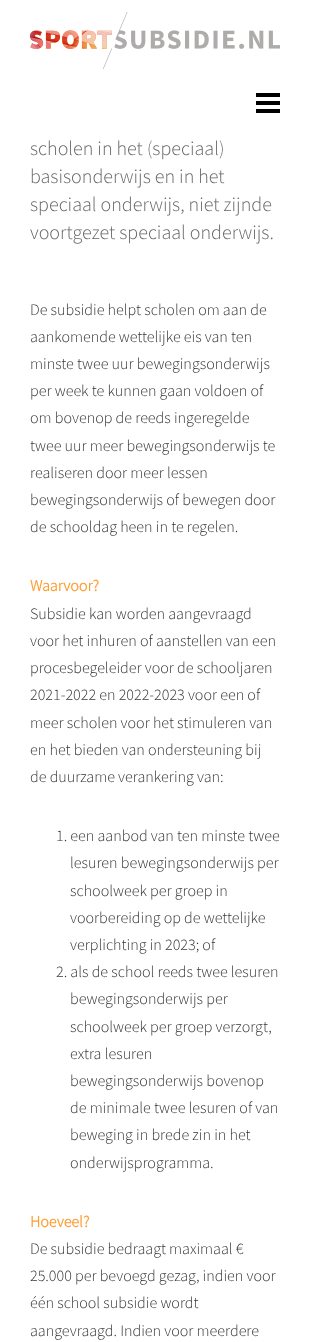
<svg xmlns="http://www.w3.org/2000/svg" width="310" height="1342">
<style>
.a{font:300 20px Source Sans Pro;fill:#666}
.b{font:300 16px Source Sans Pro;fill:#333}
.c{font:bold 16px Source Sans Pro;fill:#ff9e32}
</style>
<rect width="100%" height="100%" fill="#fff"/>
<image href="1.png" x="30" y="12" width="250" height="57"/>
<image href="2.png" x="256" y="93" width="24" height="20"/>
<text class="a" x="30" y="155">scholen in het (speciaal)</text>
<text class="a" x="30" y="183">basisonderwijs en in het</text>
<text class="a" x="30" y="211">speciaal onderwijs, niet zijnde</text>
<text class="a" x="30" y="239">voortgezet speciaal onderwijs.</text>
<text class="b" x="30" y="315">De subsidie helpt scholen om aan de</text>
<text class="b" x="30" y="342">aankomende wettelijke eis van ten</text>
<text class="b" x="30" y="369">minste twee uur bewegingsonderwijs</text>
<text class="b" x="30" y="396">per week te kunnen gaan voldoen of</text>
<text class="b" x="30" y="423">om bovenop de reeds ingeregelde</text>
<text class="b" x="30" y="451">twee uur meer bewegingsonderwijs te</text>
<text class="b" x="30" y="478">realiseren door meer lessen</text>
<text class="b" x="30" y="505">bewegingsonderwijs of bewegen door</text>
<text class="b" x="30" y="532">de schooldag heen in te regelen.</text>
<text class="c" x="30" y="591">Waarvoor?</text>
<text class="b" x="30" y="619">Subsidie kan worden aangevraagd</text>
<text class="b" x="30" y="646">voor het inhuren of aanstellen van een</text>
<text class="b" x="30" y="673">procesbegeleider voor de schooljaren</text>
<text class="b" x="30" y="700">2021-2022 en 2022-2023 voor een of</text>
<text class="b" x="30" y="728">meer scholen voor het stimuleren van</text>
<text class="b" x="30" y="755">en het bieden van ondersteuning bij</text>
<text class="b" x="30" y="782">de duurzame verankering van:</text>
<text class="b" x="56" y="841">1. een aanbod van ten minste twee</text>
<text class="b" x="70" y="868">lesuren bewegingsonderwijs per</text>
<text class="b" x="70" y="896">schoolweek per groep in</text>
<text class="b" x="70" y="923">voorbereiding op de wettelijke</text>
<text class="b" x="70" y="950">verplichting in 2023; of</text>
<text class="b" x="56" y="977">2. als de school reeds twee lesuren</text>
<text class="b" x="70" y="1004">bewegingsonderwijs per</text>
<text class="b" x="70" y="1032">schoolweek per groep verzorgt,</text>
<text class="b" x="70" y="1059">extra lesuren</text>
<text class="b" x="70" y="1086">bewegingsonderwijs bovenop</text>
<text class="b" x="70" y="1113">de minimale twee lesuren of van</text>
<text class="b" x="70" y="1140">beweging in brede zin in het</text>
<text class="b" x="70" y="1168">onderwijsprogramma.</text>
<text class="c" x="30" y="1227">Hoeveel?</text>
<text class="b" x="30" y="1254">De subsidie bedraagt maximaal €</text>
<text class="b" x="30" y="1281">25.000 per bevoegd gezag, indien voor</text>
<text class="b" x="30" y="1308">één school subsidie wordt</text>
<text class="b" x="30" y="1336">aangevraagd. Indien voor meerdere</text>
</svg>
